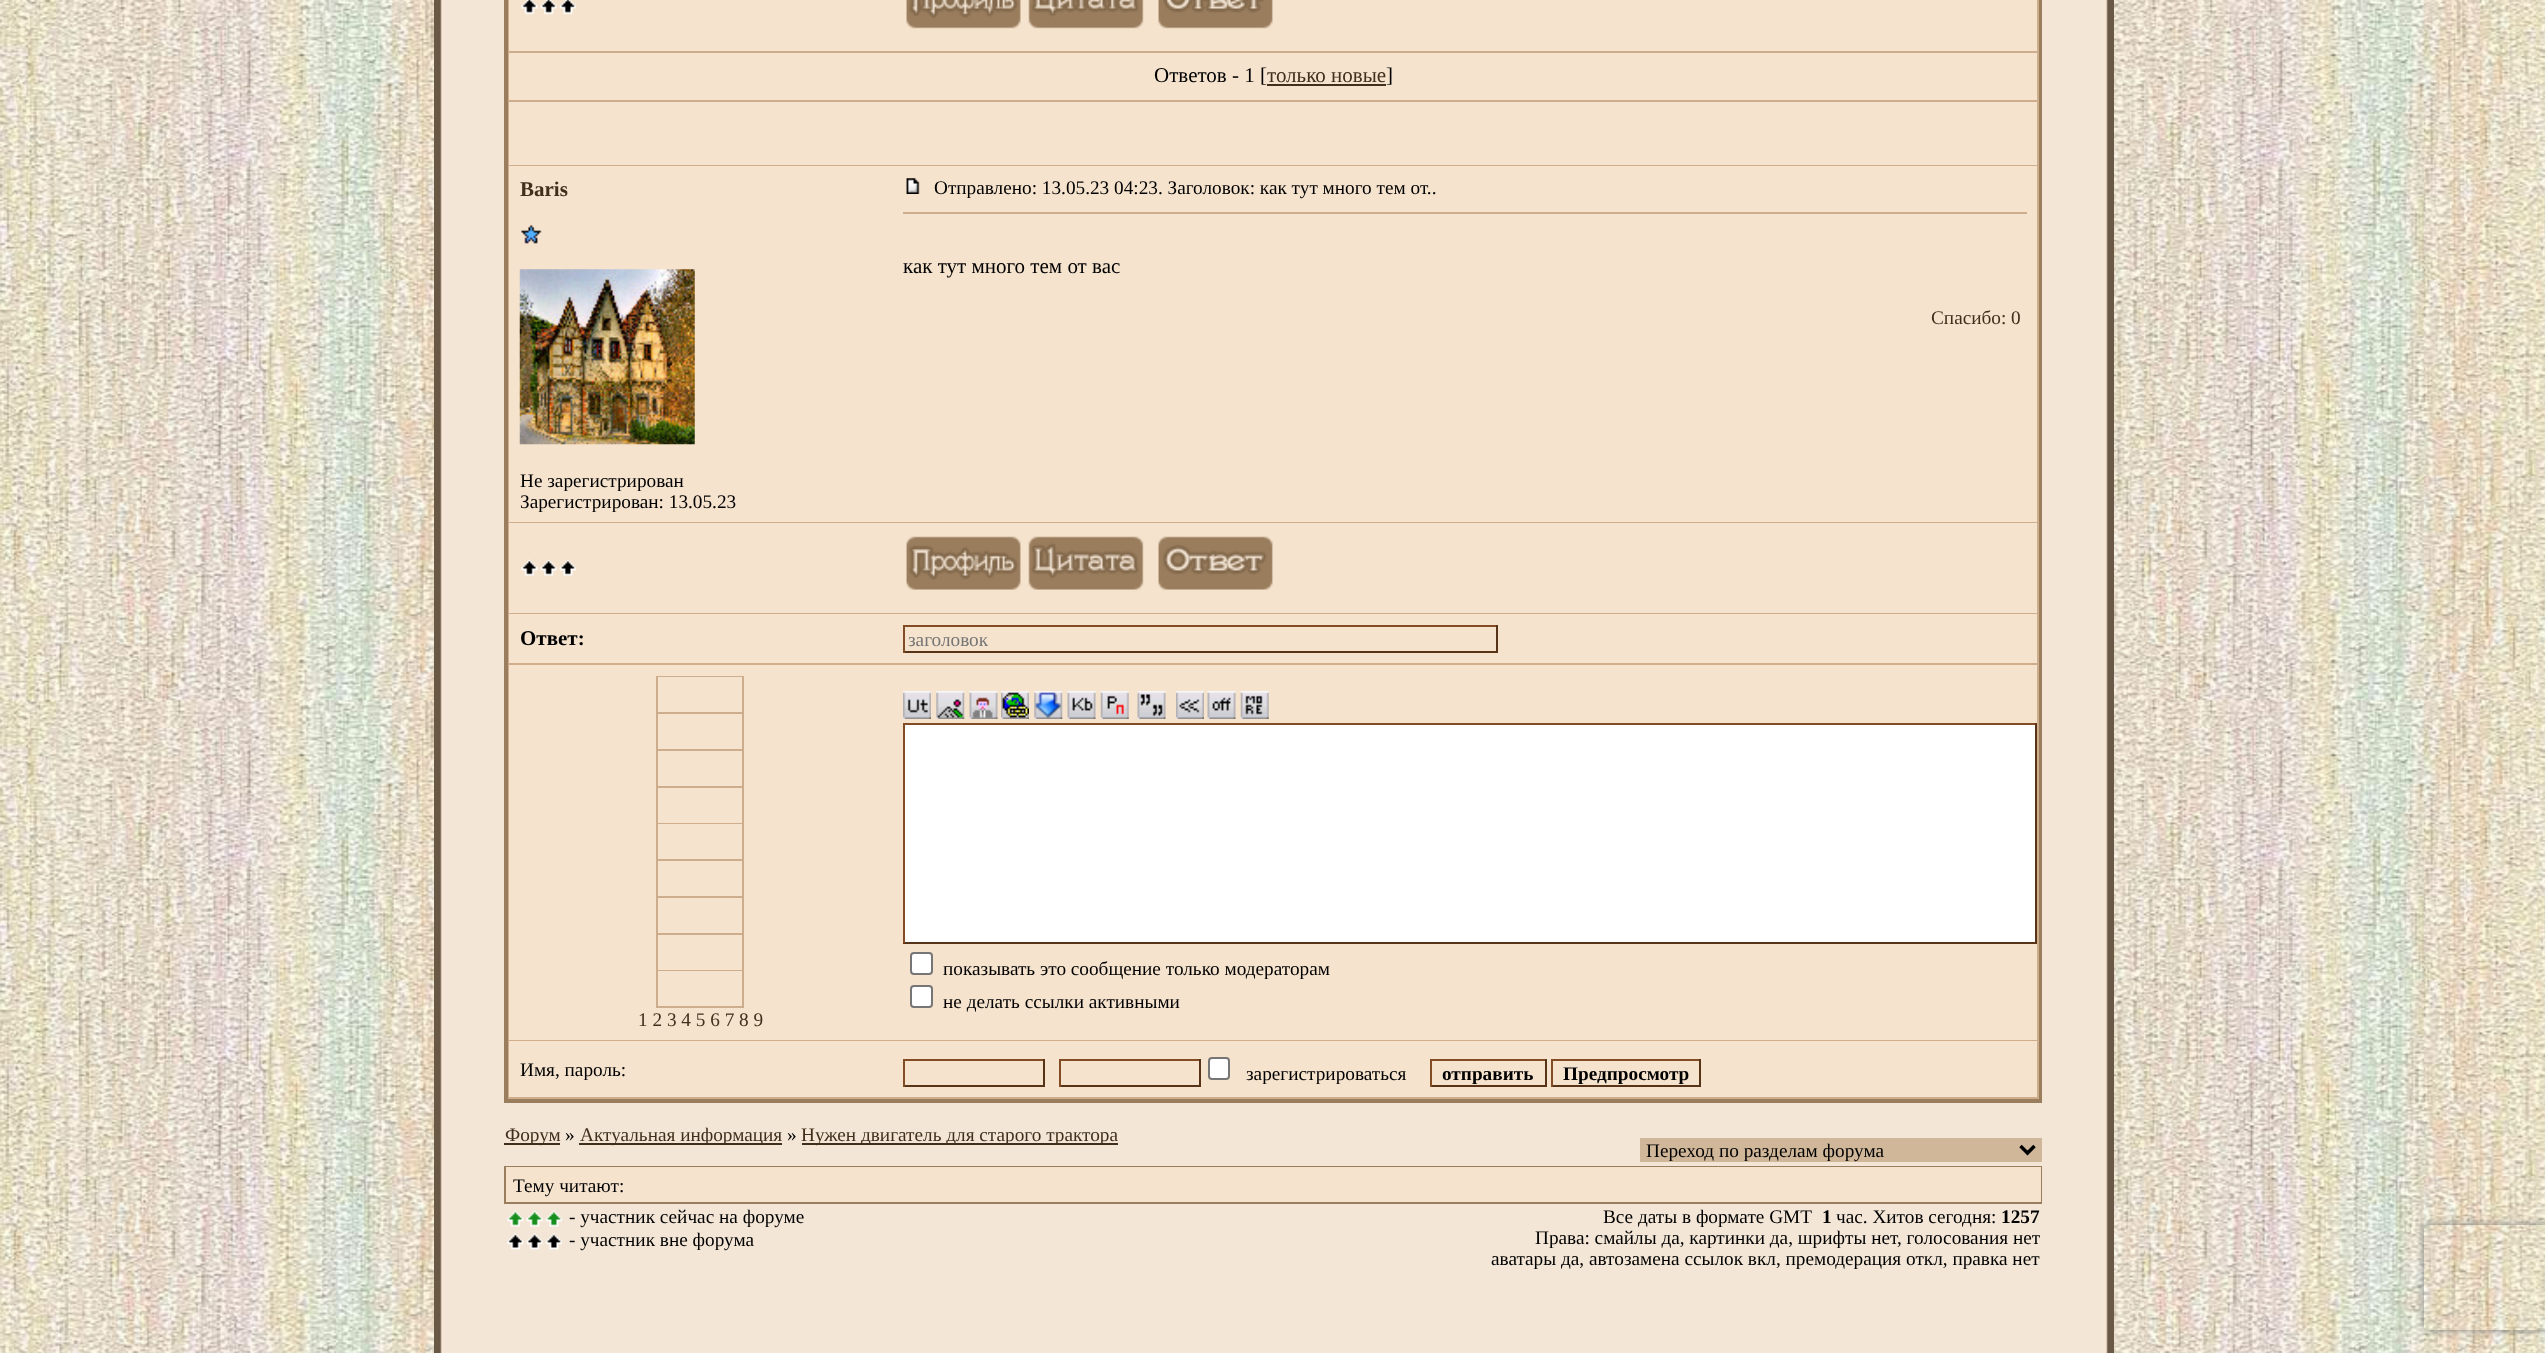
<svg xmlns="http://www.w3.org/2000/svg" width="2545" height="1353">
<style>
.a{font:21px Liberation Serif;fill:#000}
.b{font:21px Liberation Serif;fill:#412f1b}
.c{font:bold 21px Liberation Serif;fill:#412f1b}
.d{font:19.25px Liberation Serif;fill:#000}
.e{font:19.25px Liberation Serif;fill:#412f1b}
.f{font:bold 21px Liberation Serif;fill:#000}
.g{font:19.25px Liberation Serif;fill:#757575}
.h{font:bold 19.25px Liberation Serif;fill:#000}
</style>
<defs>
<clipPath id="clip1"><path d="M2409 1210h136v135h-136zm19 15h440c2 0 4 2 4 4v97c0 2-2 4-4 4h-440c-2 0-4-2-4-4v-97c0-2 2-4 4-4z" clip-rule="evenodd"/></clipPath>
</defs>
<rect width="100%" height="100%" fill="#fff"/>
<image href="1.png" x="0" y="0" width="2545" height="1353"/>
<image href="2.png" x="434" y="0" width="1680" height="1353"/>
<path fill="#9a7d5d" d="M504 0h1538v1103H504z"/>
<path fill="#cead8c" d="M508 0h1531v1099H508z"/>
<path fill="#f5e3ce" d="M509 0h1528v51H509z"/>
<image href="3.png" x="521" y="0" width="56" height="15"/>
<image href="4.png" x="906" y="0" width="115" height="29"/>
<image href="5.png" x="1028" y="0" width="116" height="29"/>
<image href="6.png" x="1158" y="0" width="115" height="29"/>
<path fill="#f5e3ce" d="M509 53h1528v47H509z"/>
<path fill="#412f1b" d="M1267 84h119v2H1267z"/>
<path fill="#f5e3ce" d="M509 102h1528v63H509z"/>
<path fill="#f5e3ce" d="M509 166h1528v356H509z"/>
<image href="7.png" x="521" y="225" width="21" height="19"/>
<image href="8.png" x="519" y="269" width="176" height="176"/>
<image href="9.png" x="906" y="178" width="14" height="16"/>
<path fill="#cead8c" d="M903 212h1124v2H903z"/>
<path fill="#f5e3ce" d="M509 523h1528v90H509z"/>
<image href="10.png" x="521" y="559" width="56" height="17"/>
<image href="11.png" x="906" y="536" width="115" height="54"/>
<image href="12.png" x="1028" y="536" width="116" height="54"/>
<image href="13.png" x="1158" y="536" width="115" height="54"/>
<path fill="#f5e3ce" d="M509 614h1528v49H509z"/>
<path fill="#834c24" d="M903 625h595v2H903z"/>
<path fill="#573318" d="M1496 625h2v28H1496z"/>
<path fill="#573318" d="M903 651h595v2H903z"/>
<path fill="#834c24" d="M903 625h2v28H903z"/>
<path fill="#f5e3ce" d="M509 665h1528v375H509z"/>
<image href="14.png" x="903" y="691" width="28" height="28"/>
<image href="15.png" x="936" y="691" width="29" height="28"/>
<image href="16.png" x="969" y="691" width="29" height="28"/>
<image href="17.png" x="1001" y="691" width="28" height="28"/>
<image href="18.png" x="1034" y="691" width="29" height="28"/>
<image href="19.png" x="1067" y="691" width="29" height="28"/>
<image href="20.png" x="1100" y="691" width="29" height="28"/>
<image href="21.png" x="1137" y="691" width="29" height="28"/>
<image href="22.png" x="1176" y="691" width="28" height="28"/>
<image href="23.png" x="1207" y="691" width="29" height="28"/>
<image href="24.png" x="1240" y="691" width="29" height="28"/>
<path fill="#fff" d="M905 725h1130v217H905z"/>
<path fill="#834c24" d="M903 723h1134v2H903z"/>
<path fill="#573318" d="M2035 723h2v220H2035z"/>
<path fill="#573318" d="M903 942h1134v2H903z"/>
<path fill="#834c24" d="M903 723h2v220H903z"/>
<rect fill="#fff" stroke="#767676" stroke-width="2" x="911" y="953" width="21" height="21" rx="3"/>
<rect fill="#fff" stroke="#767676" stroke-width="2" x="911" y="986" width="21" height="21" rx="3"/>
<path fill="#cead8c" d="M656 676h88v332H656z"/>
<path fill="#f5e3ce" d="M658 677h84v35H658z"/>
<path fill="#f5e3ce" d="M658 714h84v35H658z"/>
<path fill="#f5e3ce" d="M658 751h84v35H658z"/>
<path fill="#f5e3ce" d="M658 788h84v35H658z"/>
<path fill="#f5e3ce" d="M658 824h84v35H658z"/>
<path fill="#f5e3ce" d="M658 861h84v35H658z"/>
<path fill="#f5e3ce" d="M658 898h84v35H658z"/>
<path fill="#f5e3ce" d="M658 935h84v35H658z"/>
<path fill="#f5e3ce" d="M658 971h84v35H658z"/>
<path fill="#f5e3ce" d="M509 1041h1528v56H509z"/>
<path fill="#834c24" d="M903 1059h142v2H903z"/>
<path fill="#573318" d="M1043 1059h2v28H1043z"/>
<path fill="#573318" d="M903 1085h142v2H903z"/>
<path fill="#834c24" d="M903 1059h2v28H903z"/>
<path fill="#834c24" d="M1059 1059h142v2H1059z"/>
<path fill="#573318" d="M1199 1059h2v28H1199z"/>
<path fill="#573318" d="M1059 1085h142v2H1059z"/>
<path fill="#834c24" d="M1059 1059h2v28H1059z"/>
<rect fill="#fff" stroke="#767676" stroke-width="2" x="1209" y="1058" width="20" height="21" rx="3"/>
<path fill="#834c24" d="M1430 1059h117v2H1430z"/>
<path fill="#573318" d="M1545 1059h2v28H1545z"/>
<path fill="#573318" d="M1430 1085h117v2H1430z"/>
<path fill="#834c24" d="M1430 1059h2v28H1430z"/>
<path fill="#834c24" d="M1551 1059h150v2H1551z"/>
<path fill="#573318" d="M1699 1059h2v28H1699z"/>
<path fill="#573318" d="M1551 1085h150v2H1551z"/>
<path fill="#834c24" d="M1551 1059h2v28H1551z"/>
<path fill="#412f1b" d="M504 1143h56v2H504z"/>
<path fill="#412f1b" d="M579 1143h203v2H579z"/>
<path fill="#412f1b" d="M802 1143h316v2H802z"/>
<path fill="#d0b79a" d="M1640 1138h402v24H1640z"/>
<path fill="none" stroke="#000" stroke-width="3.5" d="M2020.5 1146l7 7l7-7"/>
<path fill="#9a7d5d" d="M504 1166h1538v38H504z"/>
<path fill="#f5e3ce" d="M506 1167h1535v35H506z"/>
<image href="25.png" x="507" y="1210" width="56" height="17"/>
<image href="26.png" x="507" y="1233" width="56" height="17"/>
<g clip-path="url(#clip1)">
<rect fill="#808080" filter="blur(4.5px)" x="2424" y="1225" width="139" height="105" rx="4"/>
</g>
<text class="a" x="1154" y="82">Ответов - 1 [</text>
<text class="b" x="1267" y="82">только новые</text>
<text class="a" x="1386" y="82">]</text>
<text class="c" x="520" y="196">Baris</text>
<text class="d" x="520" y="487">Не зарегистрирован</text>
<text class="d" x="520" y="508">Зарегистрирован: 13.05.23</text>
<text class="d" x="934" y="194">Отправлено: 13.05.23 04:23. Заголовок: как тут много тем от..</text>
<text class="a" x="903" y="273">как тут много тем от вас</text>
<text class="e" x="1931" y="324">Спасибо: 0</text>
<text class="f" x="520" y="645">Ответ:</text>
<text class="g" x="908" y="646">заголовок</text>
<text class="d" x="943" y="975">показывать это сообщение только модераторам</text>
<text class="d" x="943" y="1008">не делать ссылки активными</text>
<text class="e" x="638" y="1026">1 2 3 4 5 6 7 8 9</text>
<text class="d" x="520" y="1076">Имя, пароль:</text>
<text class="d" x="1246" y="1080">зарегистрироваться</text>
<text class="h" x="1442" y="1080">отправить</text>
<text class="h" x="1563" y="1080">Предпросмотр</text>
<text class="e" x="505" y="1141">Форум</text>
<text class="d" x="565" y="1141">»</text>
<text class="e" x="580" y="1141">Актуальная информация</text>
<text class="d" x="787" y="1141">»</text>
<text class="e" x="801" y="1141">Нужен двигатель для старого трактора</text>
<text class="d" x="1646" y="1157">Переход по разделам форума</text>
<text class="d" x="513" y="1192">Тему читают:</text>
<text class="d" x="569" y="1223">- участник сейчас на форуме</text>
<text class="d" x="569" y="1246">- участник вне форума</text>
<text class="d" x="1603" y="1223">Все даты в формате GMT</text>
<text class="h" x="1822" y="1223">1</text>
<text class="d" x="1836" y="1223">час. Хитов сегодня:</text>
<text class="h" x="2001" y="1223">1257</text>
<text class="d" x="1535" y="1244">Права: смайлы да, картинки да, шрифты нет, голосования нет</text>
<text class="d" x="1491" y="1265">аватары да, автозамена ссылок вкл, премодерация откл, правка нет</text>
</svg>
